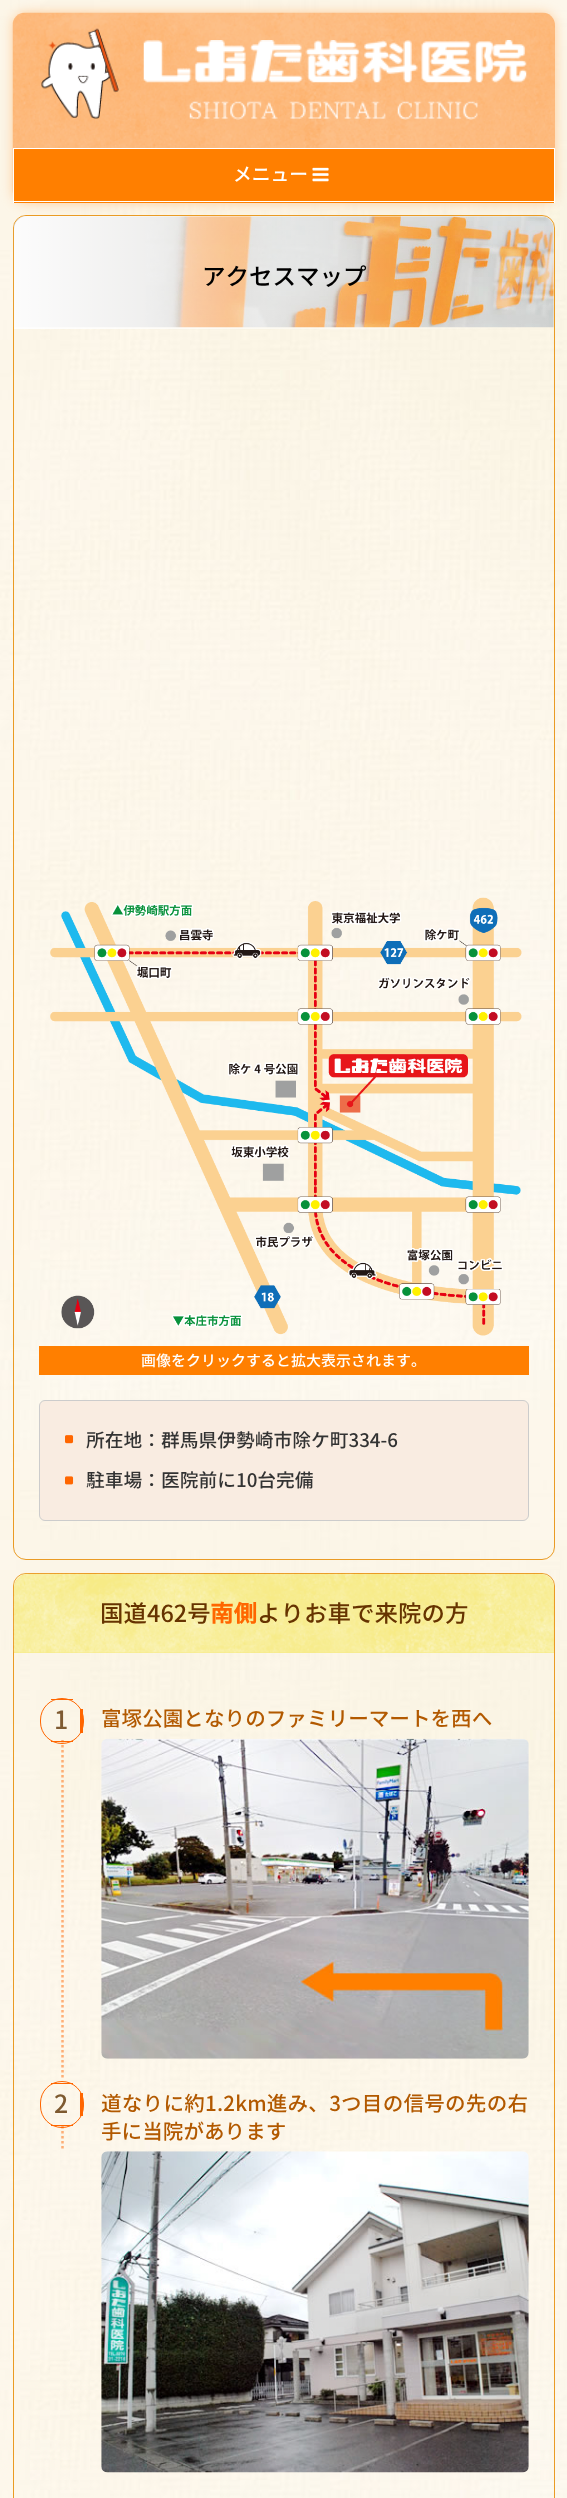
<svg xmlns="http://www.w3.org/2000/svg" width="567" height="2498">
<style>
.a{font:500 18.75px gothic;fill:#fff}
.b{font:500 23.5px gothic;fill:#000}
.c{font:500 15px gothic;fill:#fff}
.d{font:500 18.75px gothic;fill:#333}
.e{font:500 23.5px gothic;fill:#630}
.f{font:bold 23.5px gothic;fill:#f60}
.g{font:500 25px gothic;fill:#7e5a31}
.h{font:500 20.6px gothic;fill:#b25900}
.i{font:500 20.6px gothic;letter-spacing:0.2px;fill:#b25900}
</style>
<defs>
<linearGradient id="g1" gradientUnits="userSpaceOnUse" x1="14" y1="273" x2="554" y2="273"><stop offset="0" stop-color="#fff" stop-opacity="0.95"/><stop offset="1" stop-color="#fff" stop-opacity="0"/></linearGradient>
</defs>
<rect width="100%" height="100%" fill="#fff"/>
<image href="1.png" x="0" y="0" width="567" height="2498"/>
<rect fill="none" stroke="#ea9b24" x="13.5" y="215.5" width="541" height="1344" rx="12.5"/>
<rect fill="#fc9" filter="blur(6px)" x="13" y="13" width="542" height="190" rx="13"/>
<image href="2.png" x="12" y="12" width="543" height="181"/>
<image href="3.png" x="41" y="28" width="78" height="91"/>
<image href="4.png" x="143" y="40" width="384" height="80"/>
<path fill="#ff7f00" d="M14 149h540v54H14z"/>
<path fill="#fff" d="M13 148h542v1H13z"/>
<path fill="#fff" d="M554 148h1v55H554z"/>
<path fill="#fff" d="M13 201h542v1H13z"/>
<path fill="#fff" d="M13 148h1v55H13z"/>
<image href="5.png" x="312" y="167" width="17" height="15"/>
<image href="6.png" x="13" y="216" width="541" height="112"/>
<path fill="url(#g1)" d="M27 216h514c7 0 13 6 13 13v100h-540v-100c0-7 6-13 13-13z"/>
<image href="7.png" x="50" y="897" width="472" height="439"/>
<path fill="#ff7f00" d="M39 1346h490v29H39z"/>
<rect fill="#f9ece1" stroke="#ccc" x="39.5" y="1400.5" width="489" height="120" rx="5.5"/>
<image href="8.png" x="65" y="1435" width="9" height="9"/>
<image href="9.png" x="65" y="1476" width="9" height="9"/>
<rect fill="none" stroke="#ea9b24" x="13.5" y="1573.5" width="541" height="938" rx="12.5"/>
<path fill="#f7eb86" d="M27 1574h514c7 0 13 6 13 13v66h-540v-66c0-7 6-13 13-13z"/>
<image href="10.png" x="13" y="1573" width="541" height="80"/>
<rect fill="none" stroke="#f60" x="40.5" y="1698.5" width="43" height="45" rx="21.5"/>
<path fill="#f60" d="M51 1699h22v1H51z"/>
<path fill="#f60" d="M80 1709h3v24H80z"/>
<path fill="#f60" d="M51 1741h22v1H51z"/>
<path fill="none" stroke="#ff660080" stroke-width="2.5" stroke-dasharray="2.5 2.5" d="M62.5 1740v339"/>
<image href="11.png" x="101" y="1738" width="428" height="321"/>
<rect fill="none" stroke="#f60" x="40.5" y="2081.5" width="43" height="46" rx="21.5"/>
<path fill="#f60" d="M51 2083h22v1H51z"/>
<path fill="#f60" d="M80 2093h3v23H80z"/>
<path fill="#f60" d="M51 2125h22v1H51z"/>
<path fill="none" stroke="#ff660080" stroke-width="2.5" stroke-dasharray="2.5 2.5" d="M62.5 2126v25"/>
<image href="12.png" x="101" y="2151" width="428" height="322"/>
<text class="a" x="233" y="181">メニュー</text>
<text class="b" x="202" y="285">アクセスマップ</text>
<text class="c" x="141" y="1366">画像をクリックすると拡大表示されます。</text>
<text class="d" x="86" y="1447">所在地：群馬県伊勢崎市除ケ町334-6</text>
<text class="d" x="86" y="1487">駐車場：医院前に10台完備</text>
<text class="e" x="100" y="1622">国道462号</text>
<text class="f" x="210" y="1622">南側</text>
<text class="e" x="257" y="1622">よりお車で来院の方</text>
<text class="g" x="54" y="1729">1</text>
<text class="h" x="101" y="1726">富塚公園となりのファミリーマートを西へ</text>
<text class="g" x="54" y="2113">2</text>
<text class="i" x="101" y="2111">道なりに約1.2km進み、3つ目の信号の先の右</text>
<text class="h" x="101" y="2139">手に当院があります</text>
</svg>
